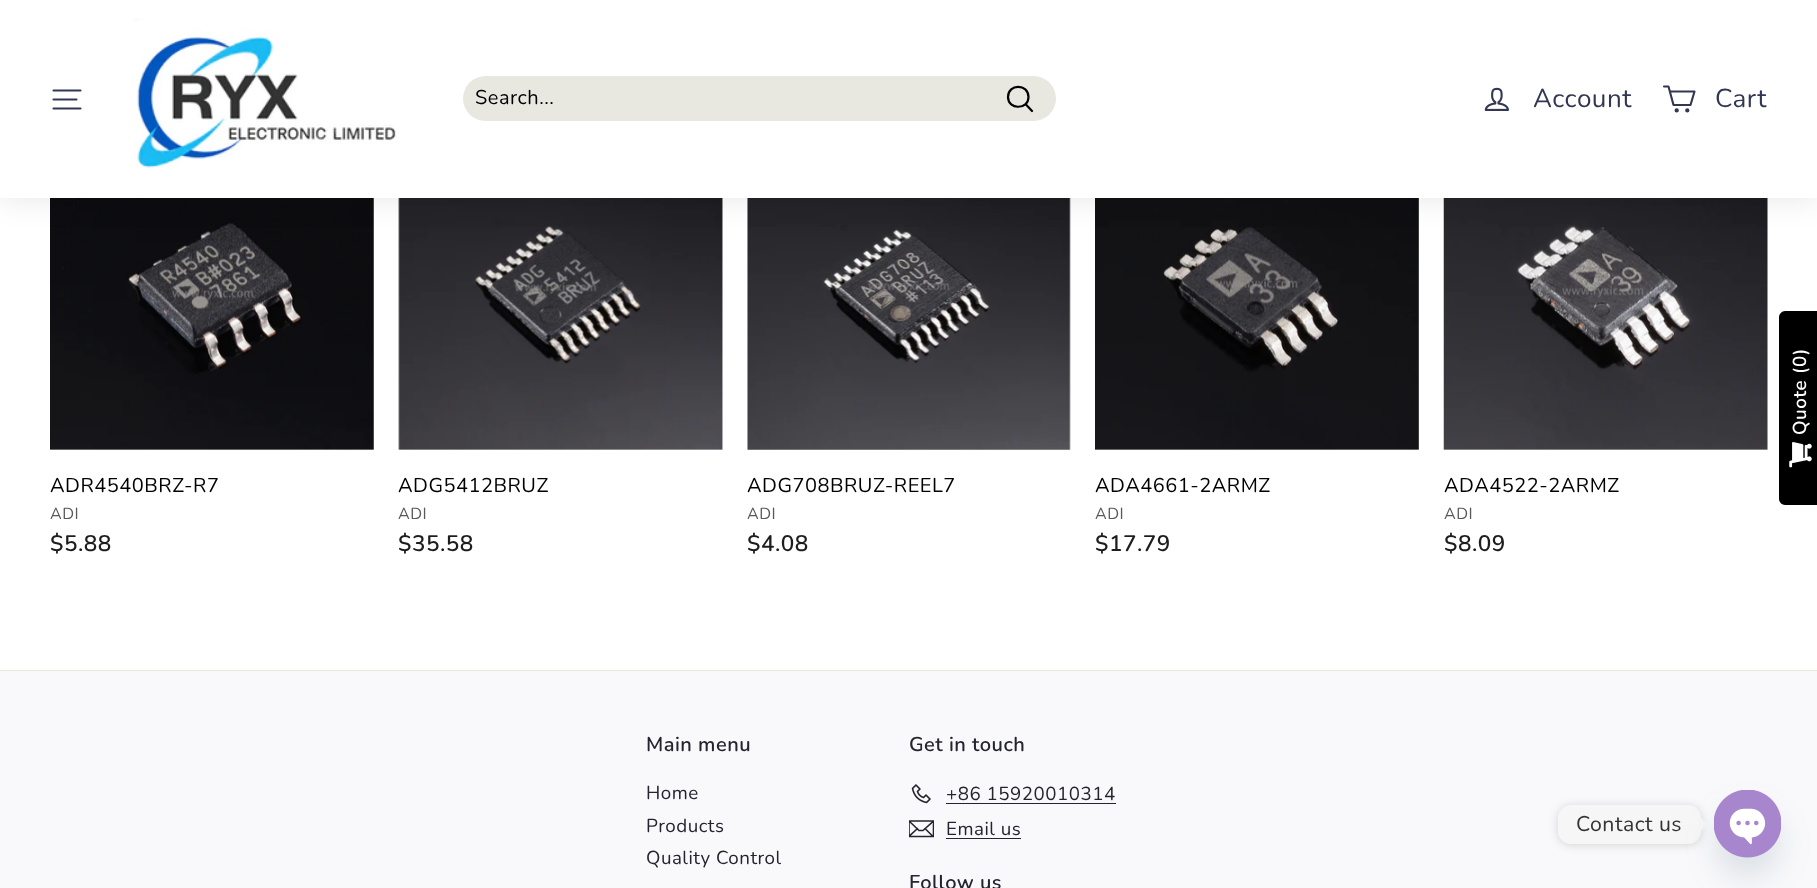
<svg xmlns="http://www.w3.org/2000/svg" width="1817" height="888">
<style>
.a{font:20px Nunito;letter-spacing:0.5px;fill:#000}
.b{font:26px Nunito;letter-spacing:0.5px;fill:#313652}
.c{font:16px Nunito;letter-spacing:0.5px;fill:#595959}
.d{font:600 22.5px Nunito;letter-spacing:0.5px;fill:#1c1d1d}
.e{font:600 20px Nunito;letter-spacing:0.5px;fill:#242430}
.f{font:18.75px Nunito;letter-spacing:0.5px;fill:#242430}
.g{font:600 18.75px Nunito;letter-spacing:0.5px;fill:#fff}
.h{font:21.25px Nunito;letter-spacing:0.5px;fill:#333}
</style>
<defs>
<clipPath id="clip1"><path d="M909 816h25v25H909z"/></clipPath>
</defs>
<rect width="100%" height="100%" fill="#fff"/>
<image href="3.png" x="50" y="198" width="324" height="252"/>
<image href="4.png" x="398" y="198" width="325" height="252"/>
<image href="5.png" x="747" y="198" width="324" height="252"/>
<image href="6.png" x="1095" y="198" width="324" height="252"/>
<image href="7.png" x="1443" y="198" width="325" height="252"/>
<path fill="#0000001a" filter="blur(15.5px)" d="M0 0h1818v198H0z"/>
<path fill="#fff" d="M0 0h1817v198H0z"/>
<path fill="none" stroke="#313652" stroke-width="2.1" stroke-linecap="round" stroke-linejoin="round" d="M53.5 90.5h27m-27 9h23m-23 9h27"/>
<image href="1.png" x="133" y="18" width="263" height="150"/>
<rect fill="#e8e8e1" x="463" y="76" width="593" height="45" rx="22.5"/>
<path fill="none" stroke="#000" stroke-width="2.2" stroke-linecap="round" stroke-linejoin="round" d="M1028.5 97c0 13-20.5 13-20.5 0c0-13.5 20.5-13.5 20.5 0zm3.5 14l-6.5-7"/>
<image href="2.png" x="1484" y="87" width="25" height="24"/>
<path fill="none" stroke="#313652" stroke-width="2.1" stroke-linecap="round" stroke-linejoin="round" d="M1670 91.5h24.5l-4 13.5h-17l-5-18.5h-4.5"/>
<circle fill="none" stroke="#313652" stroke-width="2.1" cx="1676.7" cy="110.4" r="1.1"/>
<circle fill="none" stroke="#313652" stroke-width="2.1" cx="1687.3" cy="110.4" r="1.1"/>
<path fill="#f9f9fb" d="M0 671h1817v217H0z"/>
<path fill="#e8e8e1" d="M0 670h1817v1H0z"/>
<image href="8.png" x="911" y="784" width="20" height="20"/>
<path fill="#242430" d="M946 803h170v1H946z"/>
<g clip-path="url(#clip1)">
<path fill="none" stroke="#242430" stroke-width="1.6" stroke-linecap="round" stroke-linejoin="round" d="M933.5 836.5h-24.5v-15.5h24.5zm-24.5-15.5l10 9.5h4l10.5-9.5m-16 7.5l-8 7.5m23.5 .5l-8-8"/>
</g>
<path fill="#242430" d="M946 838h75v1H946z"/>
<path fill="#000" d="M1779 499v-182c0-3 3-6 6-6h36v194h-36c-3 0-6-3-6-6z"/>
<image href="9.png" x="1789" y="442" width="23" height="26"/>
<rect fill="#00000026" filter="blur(5px)" x="1558" y="806" width="143" height="39" rx="13"/>
<rect fill="#f7f6f6" x="1558" y="805" width="143" height="39" rx="13"/>
<path fill="#f7f6f6" d="M1701 830.5v-12.5l6.5 6.5z"/>
<rect fill="#49687e29" filter="blur(15px)" x="1714" y="810" width="67" height="68" rx="33.5"/>
<image href="10.png" x="1714" y="790" width="67" height="68"/>
<text class="a" x="475" y="104">Search...</text>
<text class="b" x="1533" y="107">Account</text>
<text class="b" x="1715" y="107">Cart</text>
<text class="a" x="50" y="492">ADR4540BRZ-R7</text>
<text class="c" x="50" y="519">ADI</text>
<text class="d" x="50" y="551">$5.88</text>
<text class="a" x="398" y="492">ADG5412BRUZ</text>
<text class="c" x="398" y="519">ADI</text>
<text class="d" x="398" y="551">$35.58</text>
<text class="a" x="747" y="492">ADG708BRUZ-REEL7</text>
<text class="c" x="747" y="519">ADI</text>
<text class="d" x="747" y="551">$4.08</text>
<text class="a" x="1095" y="492">ADA4661-2ARMZ</text>
<text class="c" x="1095" y="519">ADI</text>
<text class="d" x="1095" y="551">$17.79</text>
<text class="a" x="1444" y="492">ADA4522-2ARMZ</text>
<text class="c" x="1444" y="519">ADI</text>
<text class="d" x="1444" y="551">$8.09</text>
<text class="e" x="646" y="751">Main menu</text>
<text class="f" x="646" y="799">Home</text>
<text class="f" x="646" y="832">Products</text>
<text class="f" x="646" y="864">Quality Control</text>
<text class="e" x="909" y="751">Get in touch</text>
<text class="f" x="946" y="800">+86 15920010314</text>
<text class="f" x="946" y="835">Email us</text>
<text class="e" x="909" y="889">Follow us</text>
<text class="g" x="1806" y="355" transform="rotate(-90 1806 355)">)</text>
<text class="g" x="1806" y="367" transform="rotate(-90 1806 367)">0</text>
<text class="g" x="1806" y="374" transform="rotate(-90 1806 374)">(</text>
<text class="g" x="1806" y="435" transform="rotate(-90 1806 435)">Quote</text>
<text class="h" x="1576" y="831">Contact us</text>
</svg>
